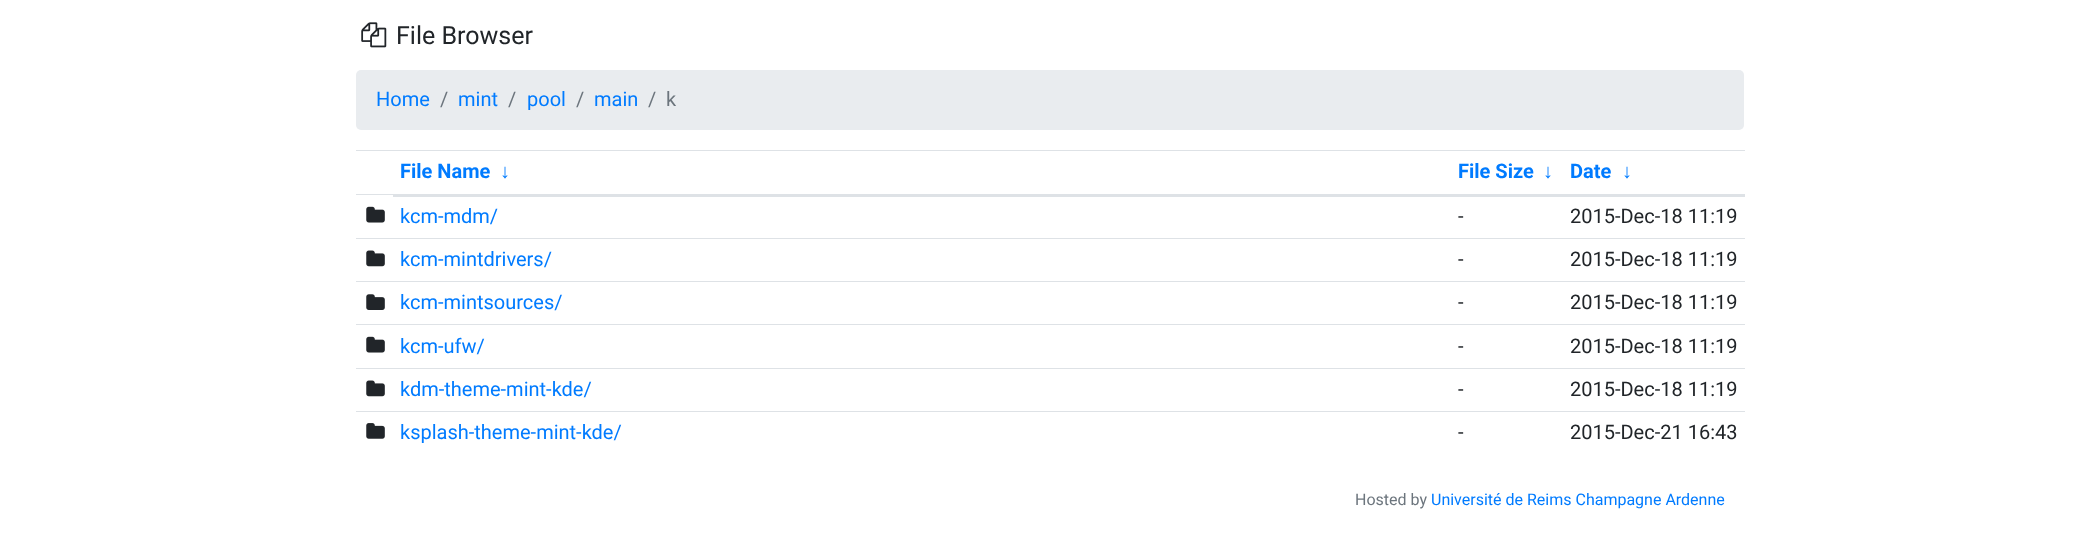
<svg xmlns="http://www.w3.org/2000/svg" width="2099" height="543">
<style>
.a{font:25px Roboto;fill:#212529}
.b{font:20px Roboto;fill:#007bff}
.c{font:20px Roboto;fill:#6c757d}
.d{font:bold 20px Roboto;fill:#007bff}
.e{font:bold 20px Liberation Sans;fill:#007bff}
.f{font:20px Roboto;fill:#212529}
.g{font:16px Roboto;fill:#6c757d}
.h{font:16px Roboto;fill:#007bff}
</style>
<rect width="100%" height="100%" fill="#fff"/>
<image href="1.png" x="361" y="22" width="26" height="26"/>
<rect fill="#e9ecef" x="356" y="70" width="1388" height="60" rx="5"/>
<path fill="#dee2e6" d="M356 150h1389v1H356z"/>
<path fill="#dee2e6" d="M356 194h39v1H356z"/>
<path fill="#dee2e6" d="M393 194h1352v3H393z"/>
<image href="2.png" x="366" y="206" width="19" height="17"/>
<image href="3.png" x="366" y="250" width="19" height="17"/>
<path fill="#dee2e6" d="M356 238h1389v1H356z"/>
<image href="4.png" x="366" y="294" width="19" height="16"/>
<path fill="#dee2e6" d="M356 281h1389v1H356z"/>
<image href="2.png" x="366" y="336" width="19" height="17"/>
<path fill="#dee2e6" d="M356 324h1389v1H356z"/>
<image href="3.png" x="366" y="380" width="19" height="17"/>
<path fill="#dee2e6" d="M356 368h1389v1H356z"/>
<image href="5.png" x="366" y="423" width="19" height="16"/>
<path fill="#dee2e6" d="M356 411h1389v1H356z"/>
<text class="a" x="396" y="44">File Browser</text>
<text class="b" x="376" y="106">Home</text>
<text class="c" x="440" y="106">/</text>
<text class="b" x="458" y="106">mint</text>
<text class="c" x="508" y="106">/</text>
<text class="b" x="527" y="106">pool</text>
<text class="c" x="576" y="106">/</text>
<text class="b" x="594" y="106">main</text>
<text class="c" x="648" y="106">/</text>
<text class="c" x="666" y="106">k</text>
<text class="d" x="400" y="178">File Name</text>
<text class="e" x="500" y="178">↓</text>
<text class="d" x="1458" y="178">File Size</text>
<text class="e" x="1543" y="178">↓</text>
<text class="d" x="1570" y="178">Date</text>
<text class="e" x="1622" y="178">↓</text>
<text class="b" x="400" y="223">kcm-mdm/</text>
<text class="f" x="1458" y="223">-</text>
<text class="f" x="1570" y="223">2015-Dec-18 11:19</text>
<text class="b" x="400" y="266">kcm-mintdrivers/</text>
<text class="f" x="1458" y="266">-</text>
<text class="f" x="1570" y="266">2015-Dec-18 11:19</text>
<text class="b" x="400" y="309">kcm-mintsources/</text>
<text class="f" x="1458" y="309">-</text>
<text class="f" x="1570" y="309">2015-Dec-18 11:19</text>
<text class="b" x="400" y="353">kcm-ufw/</text>
<text class="f" x="1458" y="353">-</text>
<text class="f" x="1570" y="353">2015-Dec-18 11:19</text>
<text class="b" x="400" y="396">kdm-theme-mint-kde/</text>
<text class="f" x="1458" y="396">-</text>
<text class="f" x="1570" y="396">2015-Dec-18 11:19</text>
<text class="b" x="400" y="439">ksplash-theme-mint-kde/</text>
<text class="f" x="1458" y="439">-</text>
<text class="f" x="1570" y="439">2015-Dec-21 16:43</text>
<text class="g" x="1355" y="505">Hosted by</text>
<text class="h" x="1431" y="505">Université de Reims Champagne Ardenne</text>
</svg>
